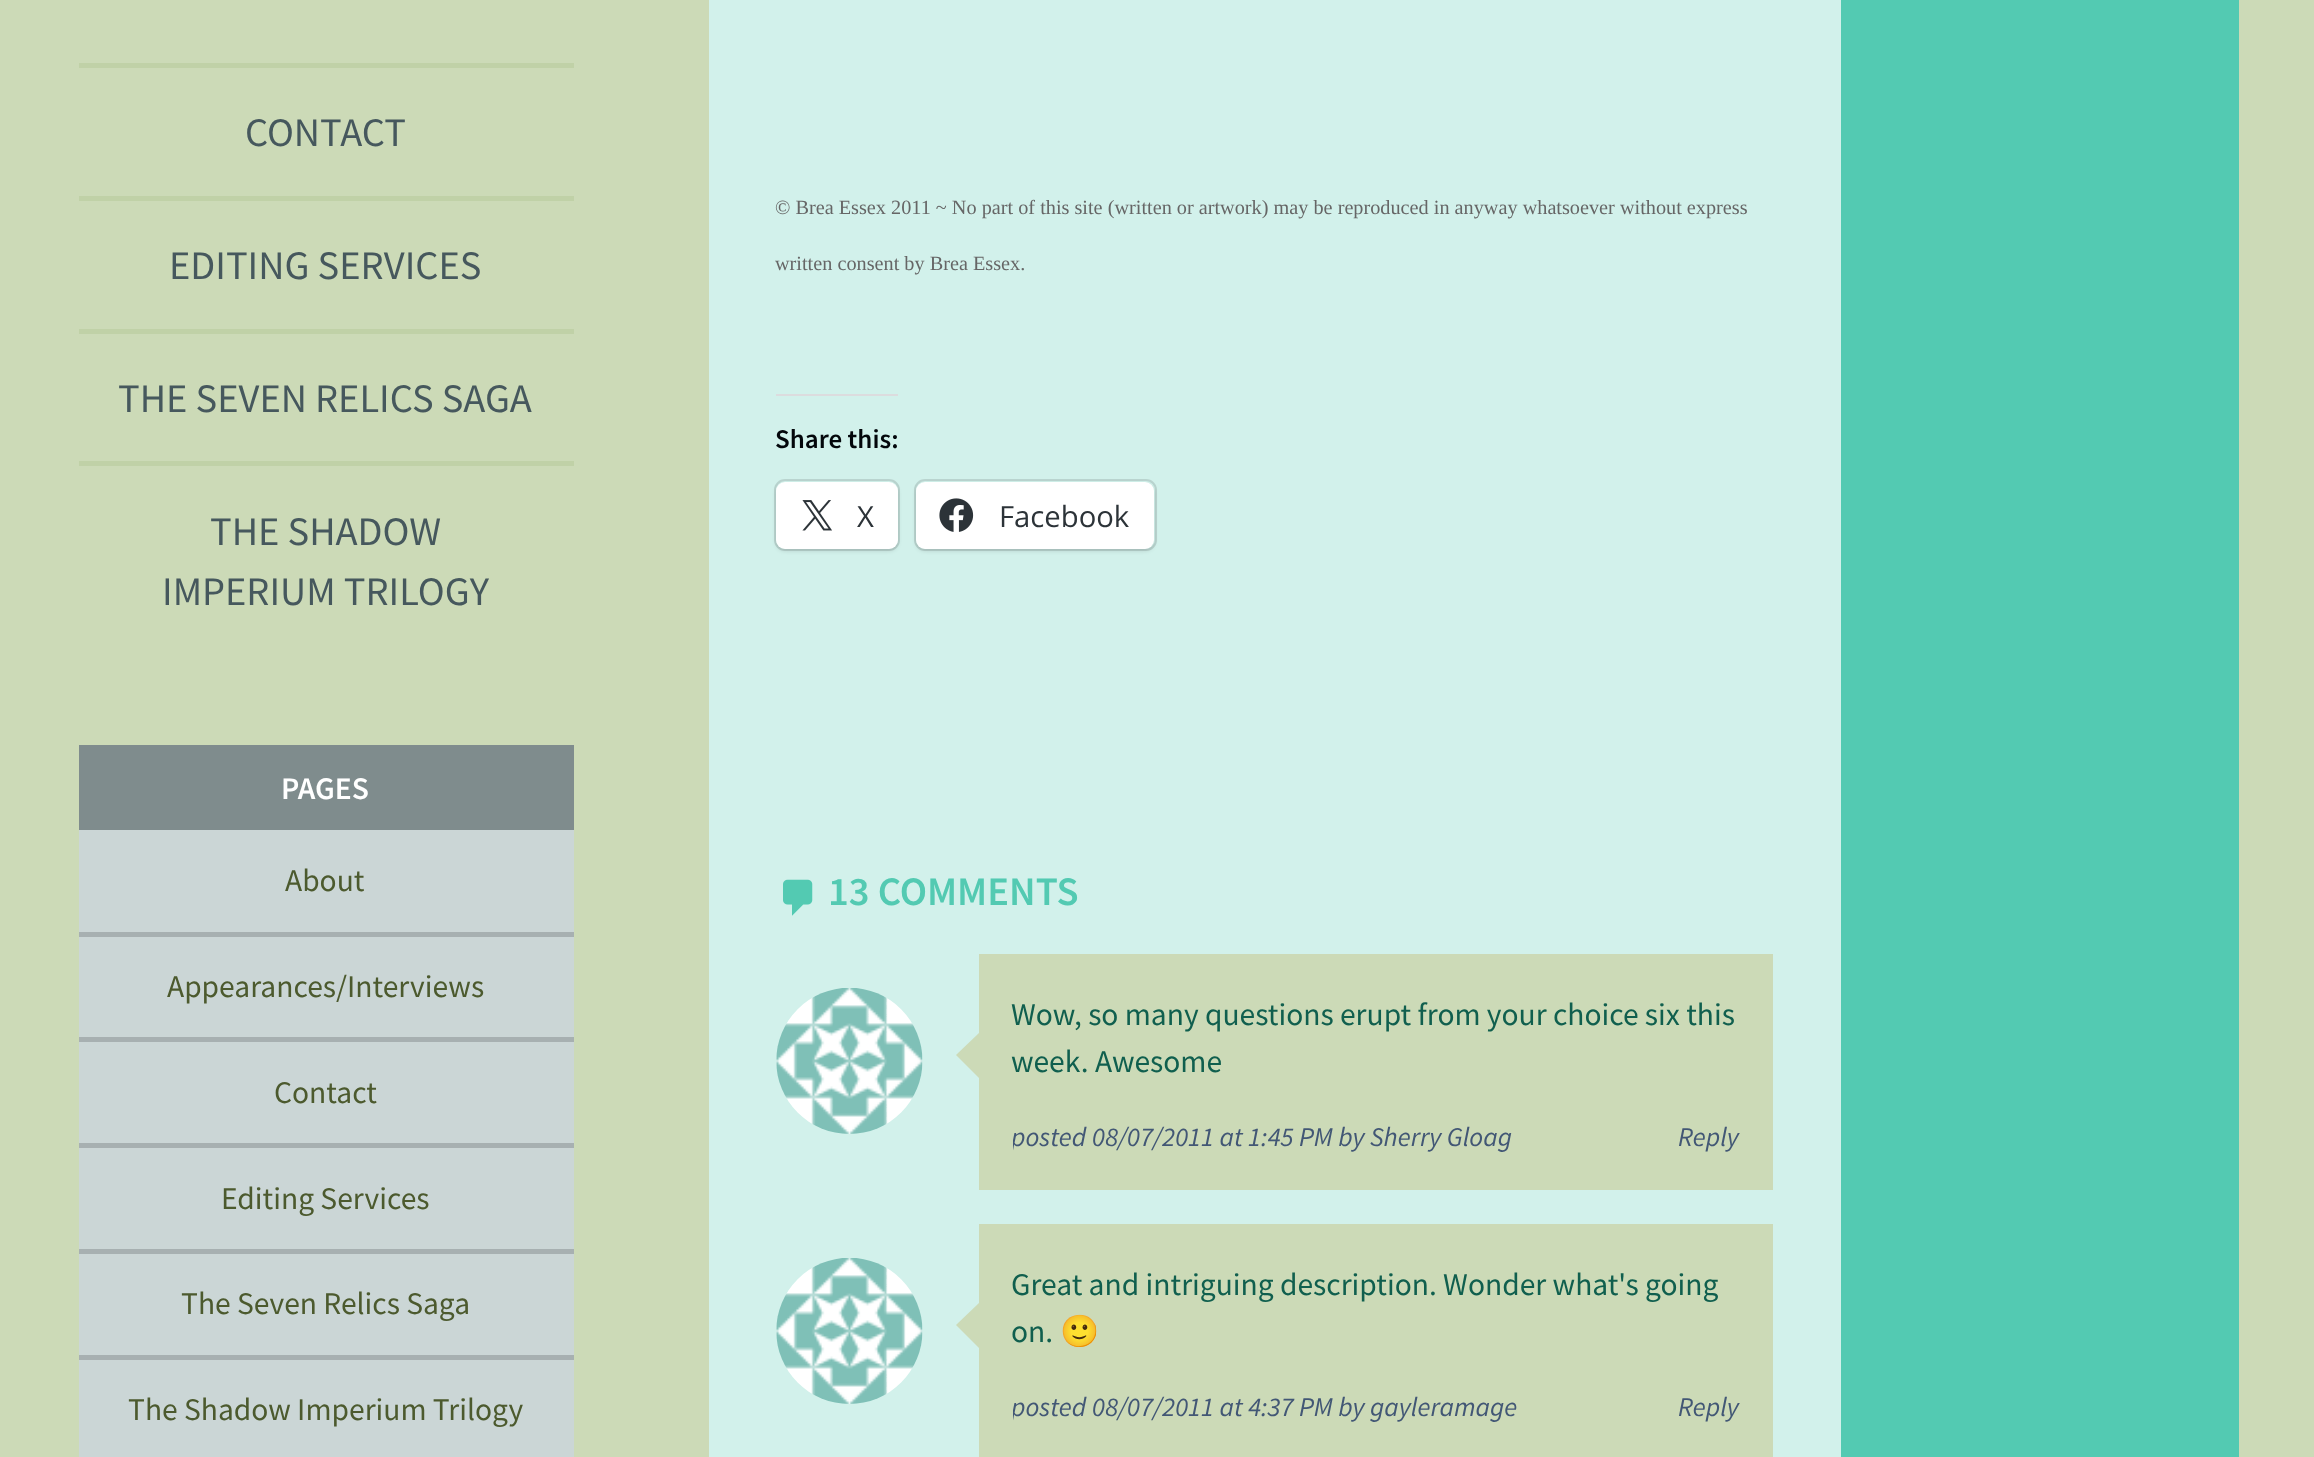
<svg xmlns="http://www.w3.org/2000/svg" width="2314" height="1457">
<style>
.a{font:40.5px Source Sans Pro;fill:#46585d}
.b{font:20.25px Liberation Serif;fill:#666}
.c{font:600 27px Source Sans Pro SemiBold;fill:#03070b}
.d{font:29.25px Open Sans;fill:#2c3338}
.e{font:600 40.5px Source Sans Pro SemiBold;fill:#53cab2}
.f{font:31.5px Source Sans Pro;fill:#105f4e}
.g{font:italic 27px Source Sans Pro;fill:#425775}
.h{font:31.5px Noto Color Emoji;fill:#105f4e}
.i{font:600 31.5px Source Sans Pro SemiBold;fill:#fff}
.j{font:31.5px Source Sans Pro;fill:#4c5a2e}
</style>
<defs>
<clipPath id="clip1"><path d="M1013 1116h726v41H1013z"/></clipPath>
<clipPath id="clip2"><path d="M1013 1386h726v41H1013z"/></clipPath>
</defs>
<rect width="100%" height="100%" fill="#ccdab7"/>
<path fill="#c0d1a7" d="M79 63h495v5H79z"/>
<path fill="#c0d1a7" d="M79 196h495v5H79z"/>
<path fill="#c0d1a7" d="M79 329h495v5H79z"/>
<path fill="#c0d1a7" d="M79 461h495v5H79z"/>
<path fill="#d2f1eb" d="M709 0h1132v1457H709z"/>
<path fill="#dcdcde" d="M776 394h122v2H776z"/>
<rect fill="none" stroke="#b9d4cf" stroke-width="2" x="775" y="480" width="124" height="70" rx="10"/>
<rect fill="#0000001f" filter="blur(2px)" x="776" y="484" width="122" height="67" rx="9"/>
<rect fill="#fff" x="776" y="482" width="122" height="67" rx="9"/>
<image href="1.png" x="802" y="500" width="30" height="31"/>
<rect fill="none" stroke="#b9d4cf" stroke-width="2" x="915" y="480" width="241" height="70" rx="10"/>
<rect fill="#0000001f" filter="blur(2px)" x="916" y="484" width="238" height="67" rx="9"/>
<rect fill="#fff" x="916" y="482" width="238" height="67" rx="9"/>
<image href="2.png" x="939" y="498" width="35" height="34"/>
<image href="3.png" x="783" y="879" width="30" height="37"/>
<path fill="#ccdab7" d="M979 954h794v236H979z"/>
<image href="4.png" x="776" y="988" width="147" height="146"/>
<path fill="#ccdab7" d="M979 1033v45l-23-23z"/>
<path fill="#ccdab7" d="M979 1224h794v233H979z"/>
<image href="4.png" x="776" y="1258" width="147" height="146"/>
<path fill="#ccdab7" d="M979 1303v45l-23-23z"/>
<path fill="#53cab2" d="M1841 0h398v1457H1841z"/>
<path fill="#cbd6d6" d="M79 830h495v627H79z"/>
<path fill="#7f8c8d" d="M79 745h495v85H79z"/>
<path fill="#a7b0b1" d="M79 932h495v5H79z"/>
<path fill="#a7b0b1" d="M79 1037h495v5H79z"/>
<path fill="#a7b0b1" d="M79 1143h495v5H79z"/>
<path fill="#a7b0b1" d="M79 1249h495v5H79z"/>
<path fill="#a7b0b1" d="M79 1355h495v5H79z"/>
<text class="a" x="245" y="146">CONTACT</text>
<text class="a" x="169" y="279">EDITING SERVICES</text>
<text class="a" x="118" y="412">THE SEVEN RELICS SAGA</text>
<text class="a" x="210" y="545">THE SHADOW</text>
<text class="a" x="162" y="605">IMPERIUM TRILOGY</text>
<text class="b" x="775" y="214">© Brea Essex 2011 ~ No part of this site (written or artwork) may be reproduced in anyway whatsoever without express</text>
<text class="b" x="775" y="270">written consent by Brea Essex.</text>
<text class="c" x="775" y="448">Share this:</text>
<text class="d" x="857" y="527">X</text>
<text class="d" x="999" y="527">Facebook</text>
<text class="e" x="828" y="905">13 COMMENTS</text>
<text class="f" x="1011" y="1025">Wow, so many questions erupt from your choice six this</text>
<text class="f" x="1011" y="1072">week. Awesome</text>
<g clip-path="url(#clip1)">
<text class="g" x="1011" y="1146">posted</text>
</g>
<text class="g" x="1092" y="1146">08/07/2011 at 1:45 PM by Sherry Gloag</text>
<text class="g" x="1678" y="1146">Reply</text>
<text class="f" x="1011" y="1295">Great and intriguing description. Wonder what's going</text>
<text class="f" x="1011" y="1342">on.</text>
<text class="h" x="1060" y="1342">🙂</text>
<g clip-path="url(#clip2)">
<text class="g" x="1011" y="1416">posted</text>
</g>
<text class="g" x="1092" y="1416">08/07/2011 at 4:37 PM by gayleramage</text>
<text class="g" x="1678" y="1416">Reply</text>
<text class="i" x="281" y="799">PAGES</text>
<text class="j" x="285" y="891">About</text>
<text class="j" x="167" y="997">Appearances/Interviews</text>
<text class="j" x="274" y="1103">Contact</text>
<text class="j" x="221" y="1209">Editing Services</text>
<text class="j" x="181" y="1314">The Seven Relics Saga</text>
<text class="j" x="128" y="1420">The Shadow Imperium Trilogy</text>
</svg>
